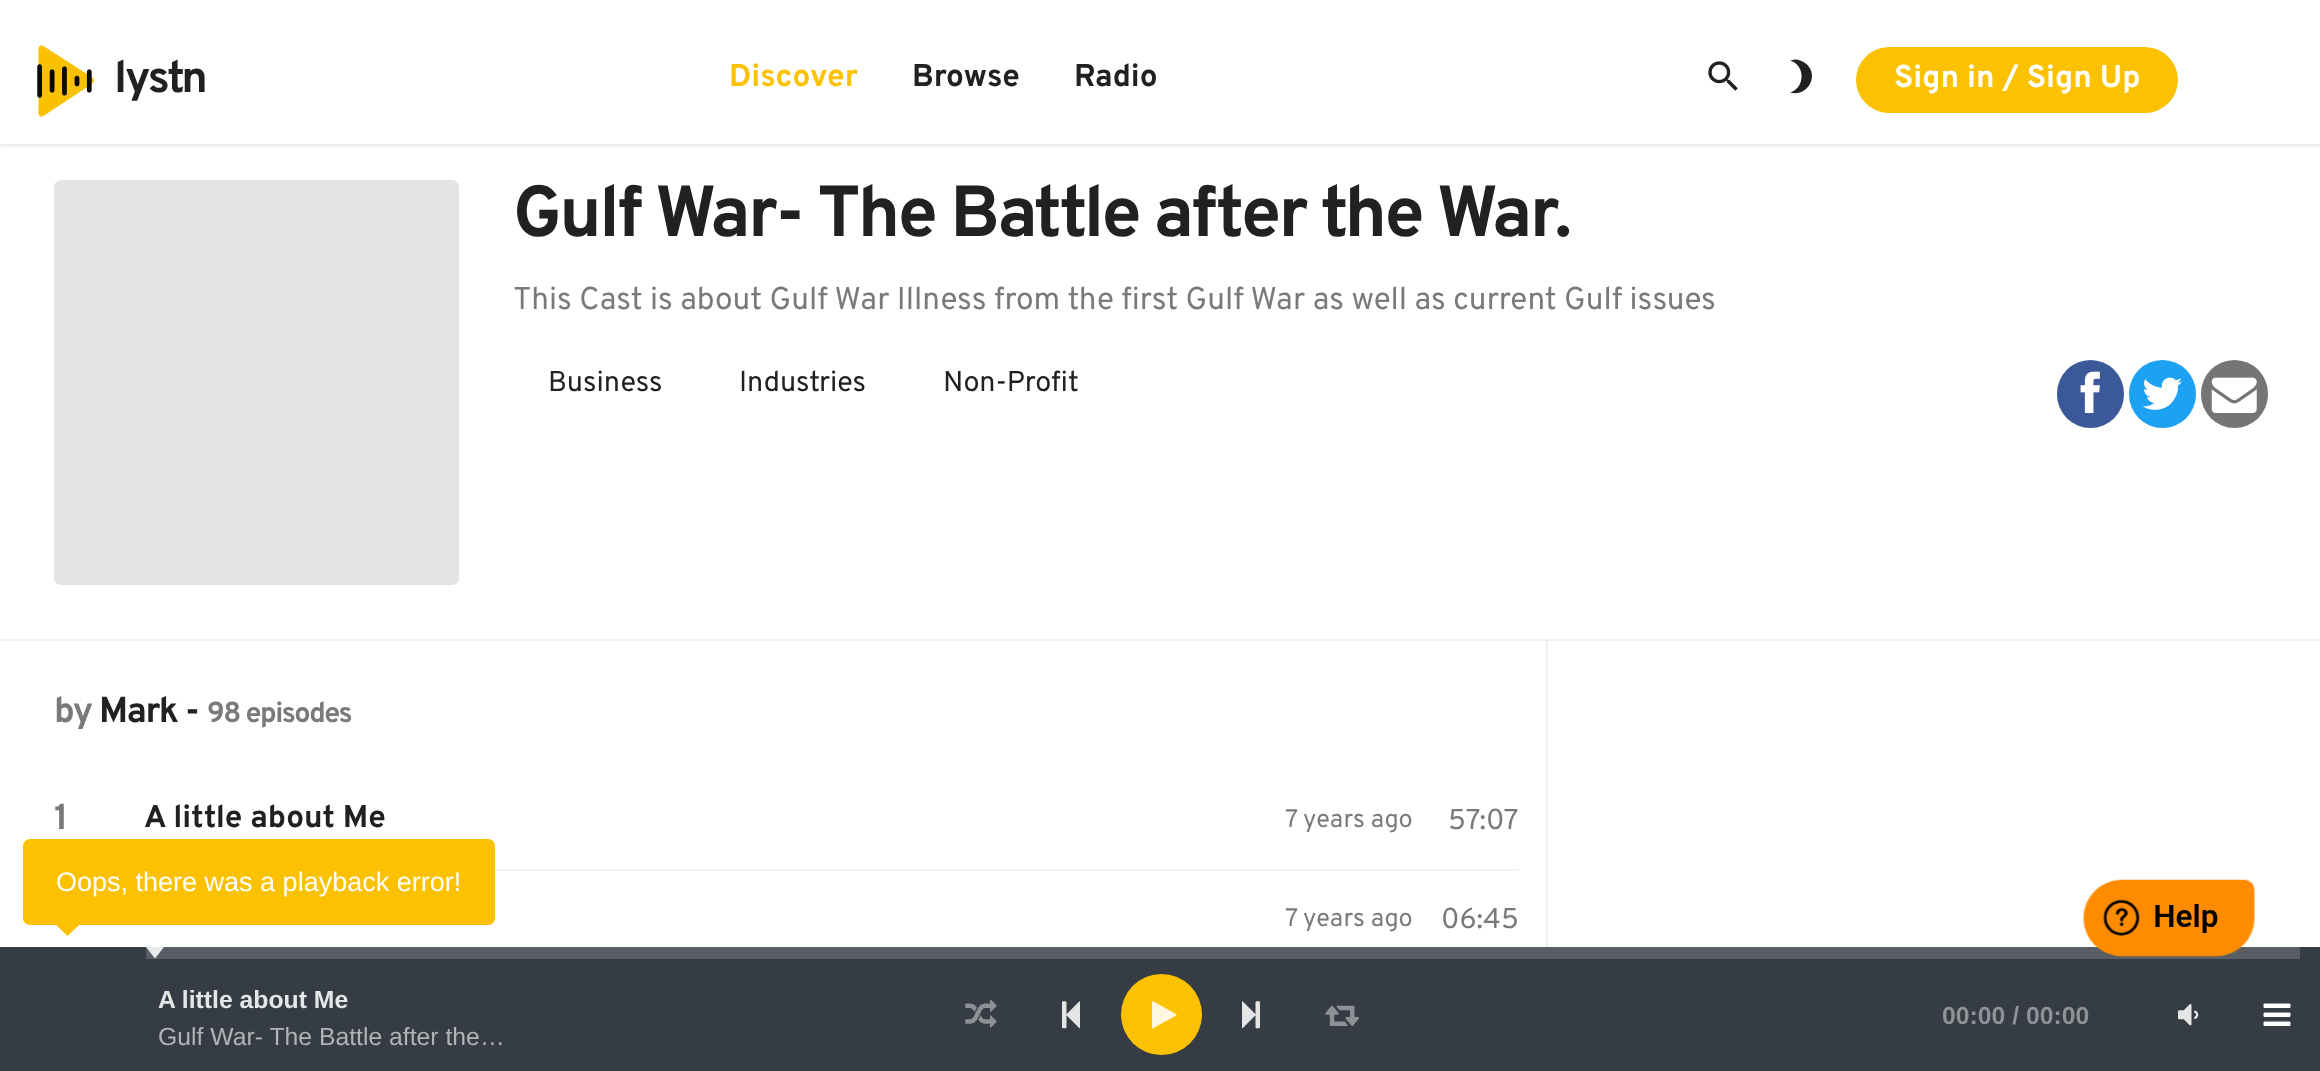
<svg xmlns="http://www.w3.org/2000/svg" width="2320" height="1071">
<style>
.a{font:bold 45px Overpass;letter-spacing:-2px;fill:#212121}
.b{font:bold 31.5px Overpass;fill:#fcc100}
.c{font:bold 31.5px Overpass;fill:#212121}
.d{font:bold 31.5px Overpass;fill:#fff}
.e{font:bold 72px Overpass;letter-spacing:-2.9px;fill:#212121}
.f{font:31.5px Overpass;fill:#7a7a7a}
.g{font:28.75px Overpass;fill:#212121}
.h{font:bold 36px Overpass;letter-spacing:-1.5px;fill:#7a7a7a}
.i{font:bold 36px Overpass;letter-spacing:-1.5px;fill:#212121}
.j{font:bold 28.75px Overpass;letter-spacing:-1.5px;fill:#7a7a7a}
.k{font:bold 36px Overpass;fill:#7a7a7a}
.l{font:25.25px Overpass;fill:#7a7a7a}
.m{font:28.75px Overpass;fill:#7a7a7a}
.n{font:27px Liberation Sans;fill:#fff}
.o{font:bold 24.75px Liberation Sans;fill:#e5e6e7}
.p{font:24.75px Liberation Sans;fill:#b1b3b6}
.q{font:bold 24.75px Liberation Sans;fill:#8e9195}
</style>
<defs>
<clipPath id="clip1"><path d="M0 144h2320v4H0z"/></clipPath>
</defs>
<rect width="100%" height="100%" fill="#fff"/>
<g clip-path="url(#clip1)">
<path fill="#0000001a" filter="blur(2px)" d="M0 2h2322v144H0z"/>
</g>
<image href="1.png" x="37" y="45" width="57" height="72"/>
<image href="2.png" x="1708" y="61" width="30" height="30"/>
<path fill="#212121" d="M1795 59.5c4.5 0 8.5 2 12 5c12.5 12.5-.5 33-17 28c15.5-4.5 15.5-27.5 0-32z"/>
<rect fill="#fcc100" x="1856" y="47" width="322" height="66" rx="33"/>
<path fill="#edeff0" d="M0 639h2320v2H0z"/>
<rect fill="#e4e4e4" x="54" y="180" width="405" height="405" rx="7"/>
<rect fill="#3b5998" x="2057" y="360" width="67" height="68" rx="33.5"/>
<image href="3.png" x="2080" y="371" width="20" height="42"/>
<rect fill="#1da1f2" x="2129" y="360" width="67" height="68" rx="33.5"/>
<image href="4.png" x="2142" y="377" width="40" height="33"/>
<rect fill="#757575" x="2201" y="360" width="67" height="68" rx="33.5"/>
<image href="5.png" x="2211" y="377" width="46" height="36"/>
<path fill="#edeff0" d="M1546 641h2v306H1546z"/>
<path fill="#f2f2f2" d="M495 869h1024v2H495z"/>
<path fill="#363c43" d="M0 947h2320v124H0z"/>
<rect fill="#fcc100" x="23" y="839" width="472" height="86" rx="7"/>
<path fill="#fcc100" d="M56 925h23l-11.5 11z"/>
<path fill="#595e64" d="M146 947h2154v12H146z"/>
<path fill="#e9eaeb" d="M146 947h18l-9 11.5z"/>
<image href="6.png" x="965" y="999" width="32" height="29"/>
<image href="7.png" x="1062" y="1001" width="18" height="28"/>
<circle fill="#fcc100" cx="1161.5" cy="1014.5" r="40.5"/>
<path fill="#fff7de" d="M1176.5 1015.5l-19.5 10.5c-.5 .5-4 3.5-5 2v-26.5l.5-.5l20 11l4 2.5z"/>
<image href="8.png" x="1242" y="1001" width="18" height="28"/>
<image href="9.png" x="1325" y="1005" width="34" height="21"/>
<image href="10.png" x="2178" y="1004" width="21" height="22"/>
<image href="11.png" x="2263" y="1003" width="28" height="23"/>
<image href="12.png" x="2083" y="879" width="172" height="78"/>
<text class="a" x="114" y="92">lystn</text>
<text class="b" x="729" y="86">Discover</text>
<text class="c" x="912" y="86">Browse</text>
<text class="c" x="1074" y="86">Radio</text>
<text class="d" x="1894" y="87">Sign in / Sign Up</text>
<text class="e" x="513" y="236">Gulf War- The Battle after the War.</text>
<text class="f" x="513" y="309">This Cast is about Gulf War Illness from the first Gulf War as well as current Gulf issues</text>
<text class="g" x="548" y="391">Business</text>
<text class="g" x="739" y="391">Industries</text>
<text class="g" x="943" y="391">Non-Profit</text>
<text class="h" x="54" y="722">by</text>
<text class="i" x="99" y="722">Mark -</text>
<text class="j" x="207" y="722">98 episodes</text>
<text class="k" x="54" y="829">1</text>
<text class="c" x="144" y="827">A little about Me</text>
<text class="l" x="1285" y="827">7 years ago</text>
<text class="m" x="1448" y="829">57:07</text>
<text class="l" x="1285" y="926">7 years ago</text>
<text class="m" x="1441" y="928">06:45</text>
<text class="n" x="56" y="891">Oops, there was a playback error!</text>
<text class="o" x="158" y="1008">A little about Me</text>
<text class="p" x="158" y="1045">Gulf War- The Battle after the…</text>
<text class="q" x="1942" y="1024">00:00 / 00:00</text>
</svg>
